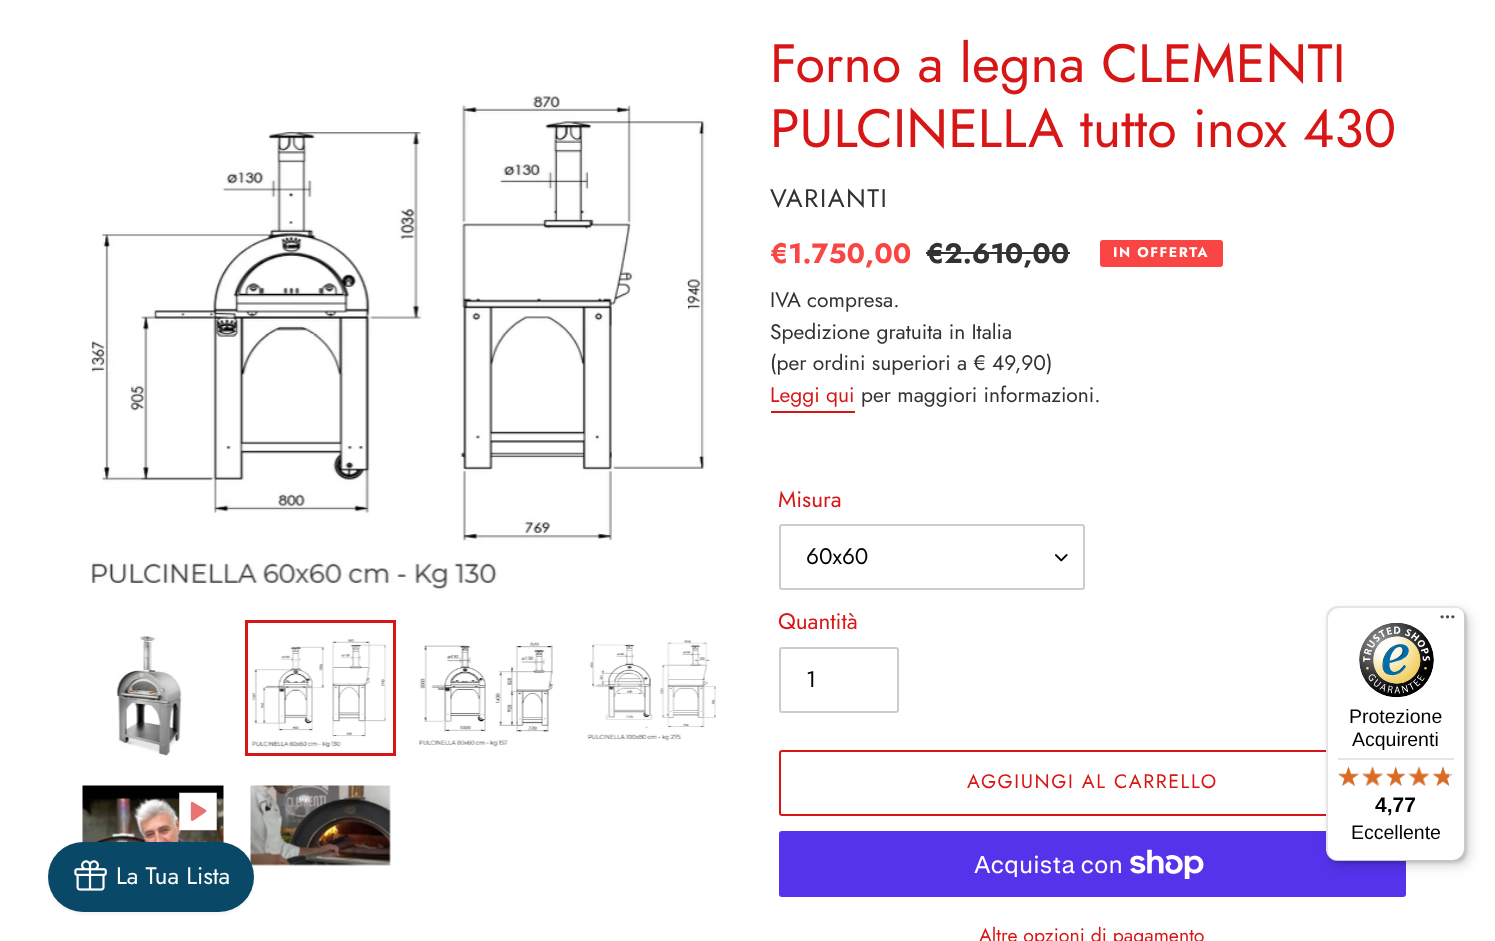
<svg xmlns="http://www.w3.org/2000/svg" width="1495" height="941">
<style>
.a{font:54px Jost;fill:#d81616}
.b{font:25.5px Jost;letter-spacing:1.5px;fill:#333232}
.c{font:bold 28px Jost;fill:#fa4545}
.d{font:bold 28px Jost;fill:#333232}
.e{font:bold 14px Jost;letter-spacing:1.5px;fill:#fff}
.f{font:21px Jost;fill:#333232}
.g{font:21px Jost;fill:#d81616}
.h{font:22.5px Jost;fill:#d81616}
.i{font:22.5px Jost;fill:#000}
.j{font:19.5px Jost;letter-spacing:1.6px;fill:#d81616}
.k{font:24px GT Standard;fill:#fff}
.l{font:19.5px Jost;fill:#d81616}
.m{font:19.5px Liberation Sans;fill:#000}
.n{font:bold 21px Liberation Sans;fill:#000}
.o{font:24px Jost;fill:#fff}
</style>
<rect width="100%" height="100%" fill="#fff"/>
<image href="1.png" x="90" y="93" width="617" height="498"/>
<image href="2.png" x="116" y="636" width="66" height="120"/>
<path fill="none" stroke="#d81616" stroke-width="3" d="M246.5 621.5h148v133H246.5z"/>
<image href="3.png" x="252" y="639" width="134" height="109"/>
<image href="4.png" x="419" y="642" width="134" height="105"/>
<image href="5.png" x="587" y="640" width="129" height="101"/>
<image href="6.png" x="82" y="785" width="142" height="58"/>
<image href="7.png" x="179" y="792" width="39" height="39"/>
<image href="8.png" x="250" y="785" width="141" height="81"/>
<path fill="#333232" d="M926 252h144v2H926z"/>
<rect fill="#fa4545" stroke="#fa4545" stroke-width="2" x="1101" y="241" width="121" height="25" rx="2"/>
<path fill="#d81616" d="M771 411h84v2H771z"/>
<image href="9.png" x="1055" y="554" width="13" height="8"/>
<rect fill="none" stroke="#ccc" stroke-width="2" x="780" y="525" width="304" height="64" rx="2"/>
<rect fill="none" stroke="#ccc" stroke-width="2" x="780" y="648" width="118" height="64" rx="2"/>
<rect fill="none" stroke="#d81616" stroke-width="2" x="780" y="751" width="625" height="64" rx="2"/>
<rect fill="#5433eb" x="779" y="831" width="627" height="66" rx="3"/>
<image href="10.png" x="1130" y="849" width="74" height="30"/>
<rect fill="#00000026" filter="blur(6px)" x="1331" y="611" width="139" height="255" rx="12"/>
<rect fill="#00000026" filter="blur(1.5px)" x="1328" y="608" width="139" height="255" rx="12"/>
<rect fill="#fff" x="1326" y="606" width="140" height="255" rx="12"/>
<path fill="#0000001a" d="M1340 608h115c4 0 8 2 10 5c-2-4-6-7-11-7h-116c-7 0-12 5-12 12v231c0 5 3 9 7 11c-3-2-5-6-5-10v-230c0-7 5-12 12-12z"/>
<path fill="#00000033" d="M1331 858c2 2 4 3 7 3h116c7 0 12-5 12-12v-231c0-4-2-7-5-10c2 3 3 5 3 8v232c0 6-5 12-12 12h-116c-2 0-4-1-5-2z"/>
<path fill="#32323233" d="M1330 858c2 2 5 3 8 3h116c7 0 12-5 12-12v-231c0-4-2-7-4-9c2 2 3 5 3 8v231c0 7-6 12-12 12h-116c-3 0-5-1-7-2z"/>
<path fill="#ffffff4d" d="M1329 857c2 2 5 4 9 4h116c7 0 12-5 12-12v-231c0-5-2-8-6-10c3 2 5 5 5 9v231c0 7-6 12-12 12h-116c-3 0-6-1-8-3z"/>
<image href="11.png" x="1440" y="615" width="15" height="4"/>
<image href="12.png" x="1359" y="623" width="75" height="75"/>
<path fill="#e5e5e5" d="M1338 758h116v2H1338z"/>
<image href="18.png" x="1338" y="767" width="21" height="19"/>
<image href="13.png" x="1338" y="766" width="21" height="20"/>
<image href="19.png" x="1362" y="767" width="21" height="19"/>
<image href="14.png" x="1362" y="766" width="21" height="20"/>
<image href="20.png" x="1386" y="767" width="19" height="19"/>
<image href="15.png" x="1386" y="766" width="19" height="20"/>
<image href="21.png" x="1409" y="767" width="20" height="19"/>
<image href="16.png" x="1408" y="766" width="22" height="20"/>
<image href="22.png" x="1433" y="767" width="20" height="19"/>
<image href="17.png" x="1433" y="766" width="16" height="20"/>
<rect fill="#0000000d" filter="blur(1.5px)" x="48" y="843" width="206" height="71" rx="35.5"/>
<rect fill="#0a4868" x="48" y="842" width="206" height="70" rx="35"/>
<image href="23.png" x="74" y="860" width="33" height="31"/>
<text class="a" x="770" y="82">Forno a legna CLEMENTI</text>
<text class="a" x="770" y="147">PULCINELLA tutto inox 430</text>
<text class="b" x="770" y="207">VARIANTI</text>
<text class="c" x="770" y="263">€1.750,00</text>
<text class="d" x="926" y="263">€2.610,00</text>
<text class="e" x="1113" y="257">IN OFFERTA</text>
<text class="f" x="770" y="307">IVA compresa.</text>
<text class="f" x="770" y="339">Spedizione gratuita in Italia</text>
<text class="f" x="770" y="370">(per ordini superiori a € 49,90)</text>
<text class="g" x="770" y="402">Leggi qui</text>
<text class="f" x="861" y="402">per maggiori informazioni.</text>
<text class="h" x="778" y="507">Misura</text>
<text class="i" x="806" y="564">60x60</text>
<text class="h" x="778" y="629">Quantità</text>
<text class="i" x="806" y="687">1</text>
<text class="j" x="967" y="788">AGGIUNGI AL CARRELLO</text>
<text class="k" x="974" y="873">Acquista con</text>
<text class="l" x="979" y="942">Altre opzioni di pagamento</text>
<text class="m" x="1349" y="723">Protezione</text>
<text class="m" x="1352" y="746">Acquirenti</text>
<text class="n" x="1375" y="812">4,77</text>
<text class="m" x="1351" y="839">Eccellente</text>
<text class="o" x="116" y="884">La Tua Lista</text>
</svg>
